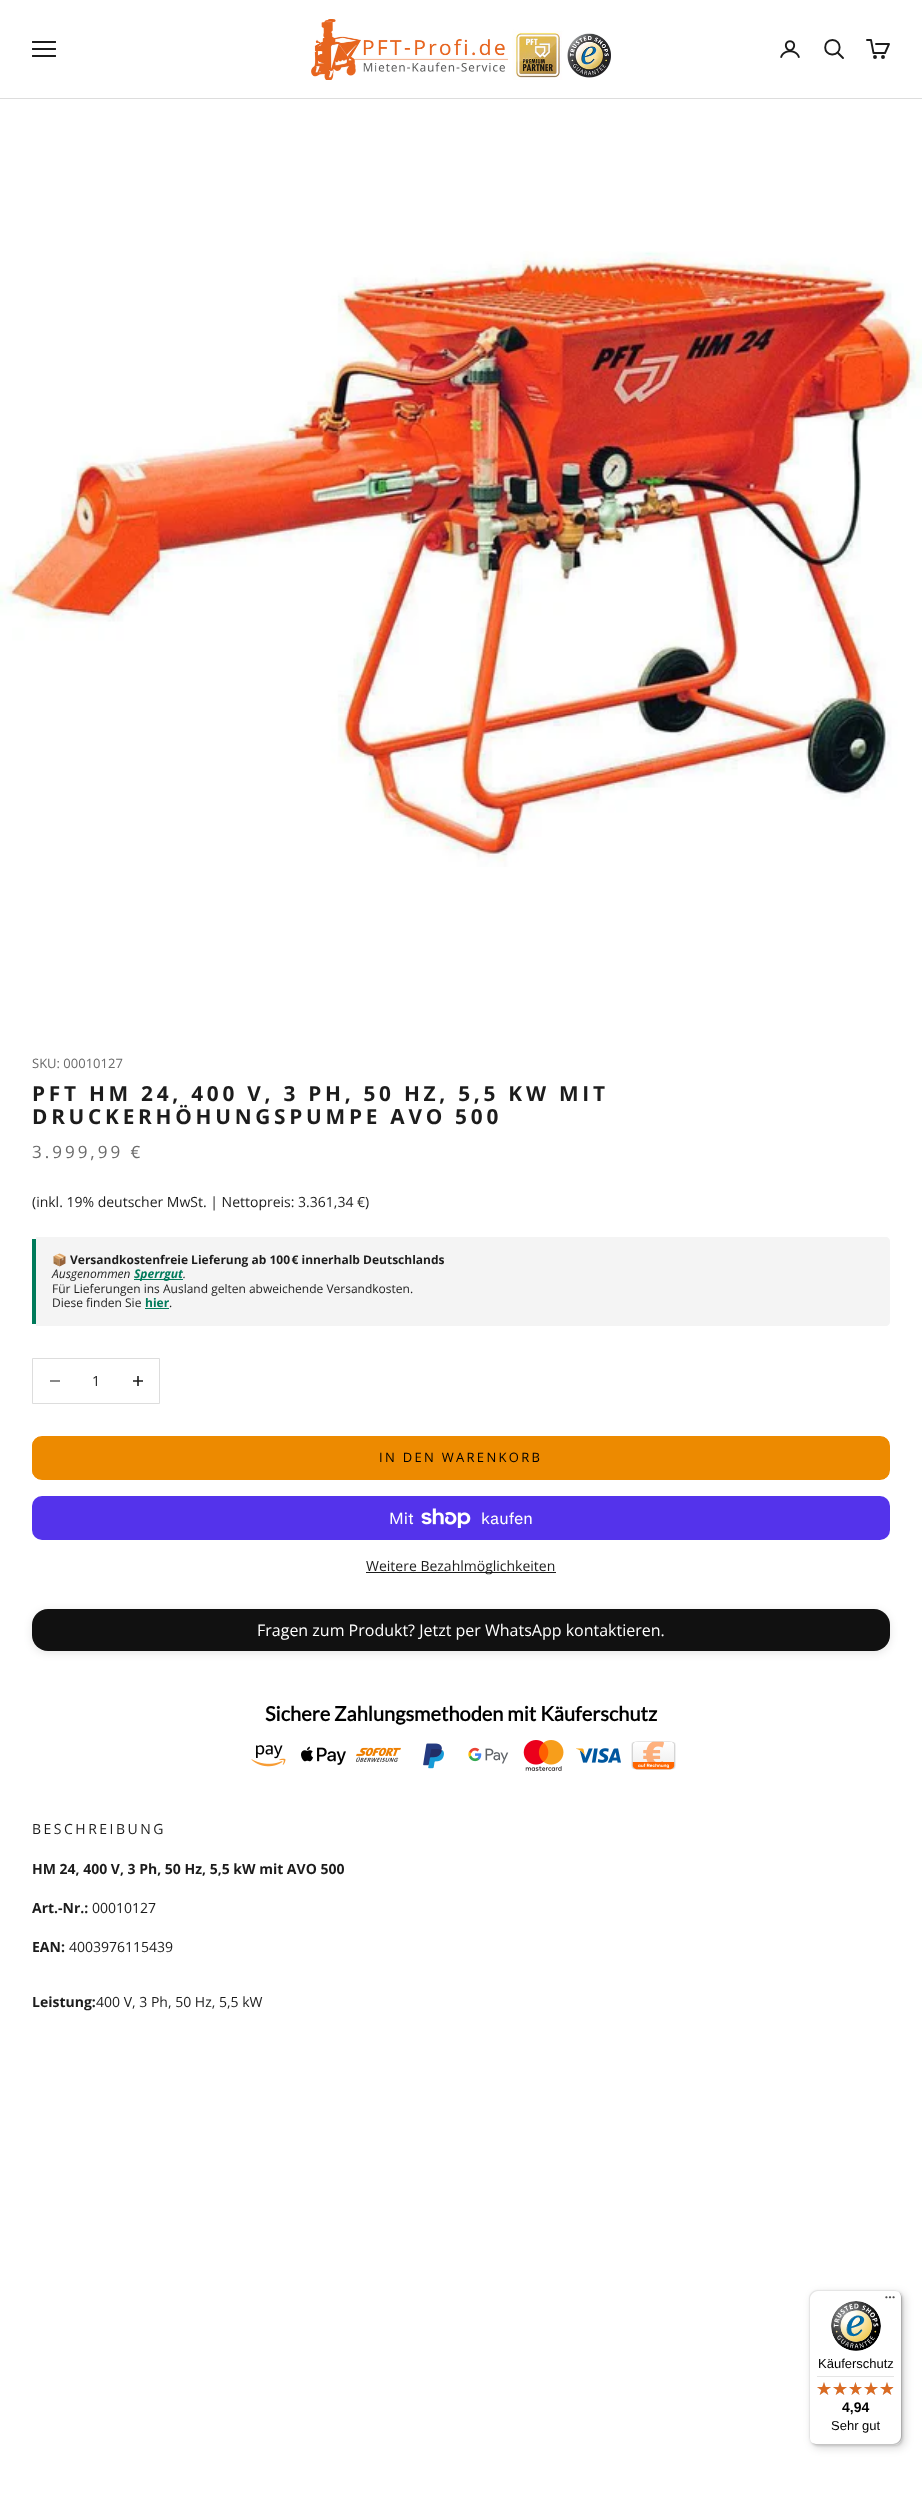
<svg xmlns="http://www.w3.org/2000/svg" width="922" height="2499">
<style>
.a{font:13px Open Sans;fill:#6b6b6b}
.b{font:bold 20.8px Open Sans;letter-spacing:3.75px;fill:#1c1c1c}
.c{font:17px Open Sans;letter-spacing:3px;fill:#6b6b6b}
.d{font:14px Open Sans;fill:#1c1c1c}
.e{font:12px Noto Color Emoji;fill:#1c1c1c}
.f{font:bold 12px Open Sans;fill:#1c1c1c}
.g{font:italic 12px Open Sans;fill:#1c1c1c}
.h{font:italic bold 12px Open Sans;fill:#007a5a}
.i{font:12px Open Sans;fill:#1c1c1c}
.j{font:bold 12px Open Sans;fill:#007a5a}
.k{font:13px Open Sans;letter-spacing:2.3px;fill:#000}
.l{font:16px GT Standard;fill:#fff}
.m{font:16px Open Sans;fill:#fff}
.n{font:bold 20px Lato;fill:#000}
.o{font:14px Open Sans;letter-spacing:2.5px;fill:#1c1c1c}
.p{font:bold 14px Open Sans;fill:#1c1c1c}
.q{font:13px Liberation Sans;fill:#000}
.r{font:bold 14px Liberation Sans;fill:#000}
</style>
<defs>
<clipPath id="clip1"><rect x="32" y="1436" width="858" height="44" rx="10"/></clipPath>
</defs>
<rect width="100%" height="100%" fill="#fff"/>
<path fill="#ddd" d="M0 98h922v1H0z"/>
<path fill="none" stroke="#1c1c1c" stroke-width="1.9" stroke-linecap="square" d="M33 56h22m-22-7h22m-22-7h22"/>
<image href="1.png" x="311" y="19" width="300" height="61"/>
<image href="2.png" x="780" y="40" width="20" height="18"/>
<path fill="none" stroke="#1c1c1c" stroke-width="1.9" d="M832.5 40c-10 0-9.5 15 0 14.5c9.5 0 9.5-14.5 0-14.5z"/>
<path fill="none" stroke="#1c1c1c" stroke-width="1.9" stroke-linecap="round" d="M838 53l5 5"/>
<path fill="none" stroke="#1c1c1c" stroke-width="1.9" stroke-linecap="round" stroke-linejoin="round" d="M876 44h13l-4 9h-11.5l-2.5-13h-4"/>
<circle fill="none" stroke="#1c1c1c" stroke-width="1.9" cx="875" cy="57" r="1"/>
<circle fill="none" stroke="#1c1c1c" stroke-width="1.9" cx="883" cy="57" r="1"/>
<image href="3.png" x="0" y="251" width="922" height="616"/>
<path fill="#f4f4f4" d="M36 1237h850c2 0 4 2 4 4v81c0 2-2 4-4 4h-850z"/>
<path fill="#007a5a" d="M32 1239h4v85H32z"/>
<path fill="#007a5a" d="M134 1279h49v1H134z"/>
<path fill="#007a5a" d="M145 1308h24v1H145z"/>
<path fill="none" stroke="#ddd" d="M32.5 1358.5h127v45H32.5z"/>
<path fill="#898989" d="M50 1380h10v2H50z"/>
<path fill="none" stroke="#1c1c1c" stroke-width="1.6" d="M138 1376v10m-5-5h10"/>
<g clip-path="url(#clip1)">
<path fill="#ed8a00" d="M32 1437h857v42H32z"/>
</g>
<rect fill="none" stroke="#ed8a00" x="32.5" y="1436.5" width="857" height="43" rx="9.5"/>
<rect fill="#5433eb" x="32" y="1496" width="858" height="44" rx="10"/>
<image href="4.png" x="421" y="1508" width="50" height="20"/>
<path fill="#1c1c1c" d="M366 1572h190v1H366z"/>
<rect fill="#0000001a" filter="blur(4px)" x="32" y="1611" width="858" height="42" rx="16"/>
<rect fill="#111" x="32" y="1609" width="858" height="42" rx="16"/>
<image href="5.png" x="251" y="1745" width="35" height="22"/>
<image href="6.png" x="301" y="1746" width="45" height="19"/>
<image href="7.png" x="356" y="1747" width="45" height="15"/>
<image href="8.png" x="423" y="1743" width="21" height="26"/>
<image href="9.png" x="468" y="1747" width="41" height="17"/>
<image href="10.png" x="523" y="1740" width="41" height="31"/>
<image href="11.png" x="576" y="1748" width="45" height="15"/>
<image href="12.png" x="631" y="1741" width="45" height="29"/>
<rect fill="#00000026" filter="blur(4px)" x="812" y="2293" width="93" height="155" rx="8"/>
<rect fill="#00000026" filter="blur(1px)" x="810" y="2291" width="93" height="155" rx="8"/>
<rect fill="#fff" x="809" y="2290" width="93" height="155" rx="8"/>
<path fill="#e5e5e5" d="M818 2291h77c2 0 4 1 6 3c-2-2-4-4-7-4h-77c-4 0-8 4-8 8v139c0 3 2 5 4 7c-2-2-3-4-3-6v-139c0-4 4-8 8-8z"/>
<path fill="#ccc" d="M810 2441c2 2 4 4 7 4h77c4 0 8-4 8-8v-139c0-3-2-5-4-7c2 2 3 4 3 6v139c0 4-4 8-8 8h-77c-2 0-4-1-6-3z"/>
<path fill="#32323233" d="M811 2442c1 2 4 3 6 3h77c4 0 8-4 8-8v-139c0-2-1-5-3-6c1 1 2 3 2 5v139c0 5-3 8-8 8h-77c-2 0-4-1-5-2z"/>
<image href="13.png" x="885" y="2296" width="10" height="3"/>
<path fill="#ffffff4d" d="M811 2442c1 2 4 3 6 3h77c4 0 8-4 8-8v-1c0 5-4 8-8 8h-78c-2 0-4-1-5-2z"/>
<image href="14.png" x="831" y="2301" width="50" height="50"/>
<path fill="#e5e5e5" d="M817 2376h77v1H817z"/>
<image href="15.png" x="817" y="2382" width="14" height="13"/>
<image href="15.png" x="833" y="2382" width="14" height="13"/>
<image href="16.png" x="849" y="2382" width="13" height="13"/>
<image href="15.png" x="864" y="2382" width="14" height="13"/>
<image href="15.png" x="880" y="2382" width="14" height="13"/>
<image href="17.png" x="817" y="2382" width="14" height="13"/>
<image href="17.png" x="833" y="2382" width="14" height="13"/>
<image href="18.png" x="849" y="2382" width="13" height="13"/>
<image href="17.png" x="864" y="2382" width="14" height="13"/>
<image href="19.png" x="880" y="2382" width="13" height="13"/>
<text class="a" x="32" y="1068">SKU: 00010127</text>
<text class="b" x="32" y="1101">PFT HM 24, 400 V, 3 PH, 50 HZ, 5,5 KW MIT</text>
<text class="b" x="32" y="1124">DRUCKERHÖHUNGSPUMPE AVO 500</text>
<text class="c" x="32" y="1158">3.999,99 €</text>
<text class="d" x="32" y="1207">(inkl. 19% deutscher MwSt. | Nettopreis: 3.361,34 €)</text>
<text class="e" x="52" y="1264">📦</text>
<text class="f" x="70" y="1264">Versandkostenfreie Lieferung ab 100 € innerhalb Deutschlands</text>
<text class="g" x="52" y="1278">Ausgenommen</text>
<text class="h" x="134" y="1278">Sperrgut</text>
<text class="g" x="183" y="1278">.</text>
<text class="i" x="52" y="1293">Für Lieferungen ins Ausland gelten abweichende Versandkosten.</text>
<text class="i" x="52" y="1307">Diese finden Sie</text>
<text class="j" x="145" y="1307">hier</text>
<text class="i" x="169" y="1307">.</text>
<text class="d" x="92" y="1386">1</text>
<text class="k" x="379" y="1462">IN DEN WARENKORB</text>
<text class="l" x="389" y="1524">Mit</text>
<text class="l" x="481" y="1524">kaufen</text>
<text class="d" x="366" y="1571">Weitere Bezahlmöglichkeiten</text>
<text class="m" x="257" y="1636">Fragen zum Produkt? Jetzt per WhatsApp kontaktieren.</text>
<text class="n" x="265" y="1721">Sichere Zahlungsmethoden mit Käuferschutz</text>
<text class="o" x="32" y="1834">BESCHREIBUNG</text>
<text class="p" x="32" y="1874">HM 24, 400 V, 3 Ph, 50 Hz, 5,5 kW mit AVO 500</text>
<text class="p" x="32" y="1913">Art.-Nr.:</text>
<text class="d" x="92" y="1913">00010127</text>
<text class="p" x="32" y="1952">EAN:</text>
<text class="d" x="69" y="1952">4003976115439</text>
<text class="p" x="32" y="2007">Leistung:</text>
<text class="d" x="96" y="2007">400 V, 3 Ph, 50 Hz, 5,5 kW</text>
<text class="q" x="818" y="2368">Käuferschutz</text>
<text class="r" x="842" y="2412">4,94</text>
<text class="q" x="831" y="2430">Sehr gut</text>
</svg>
